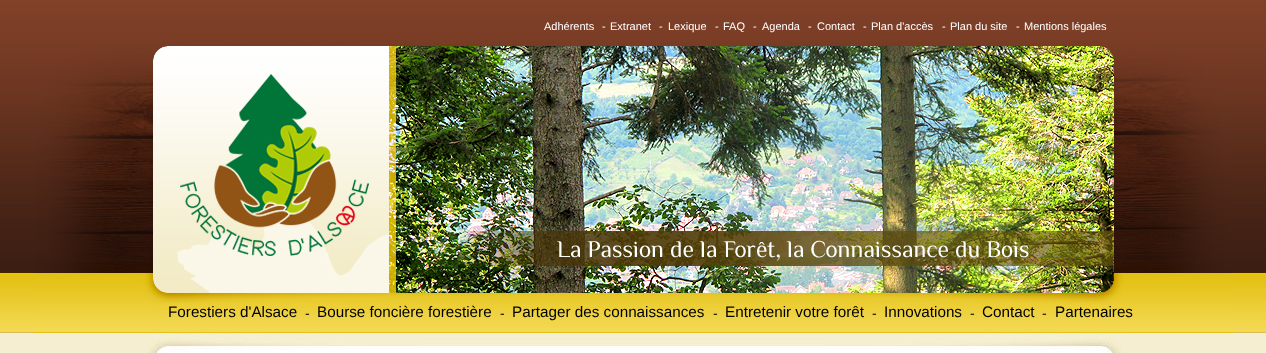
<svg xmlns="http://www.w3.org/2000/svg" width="1266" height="353">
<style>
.a{font:11px Liberation Sans;fill:#fff}
.b{font:15.25px Liberation Sans;fill:#000}
.c{font:14px Liberation Sans;fill:#000}
</style>
<rect width="100%" height="100%" fill="#f5eed1"/>
<image href="1.png" x="0" y="0" width="1266" height="333"/>
<image href="2.png" x="33" y="40" width="1200" height="293"/>
<image href="3.png" x="149" y="333" width="973" height="20"/>
<text class="a" x="544" y="30">Adhérents</text>
<text class="a" x="602" y="30">-</text>
<text class="a" x="610" y="30">Extranet</text>
<text class="a" x="659" y="30">-</text>
<text class="a" x="668" y="30">Lexique</text>
<text class="a" x="715" y="30">-</text>
<text class="a" x="723" y="30">FAQ</text>
<text class="a" x="753" y="30">-</text>
<text class="a" x="762" y="30">Agenda</text>
<text class="a" x="808" y="30">-</text>
<text class="a" x="817" y="30">Contact</text>
<text class="a" x="863" y="30">-</text>
<text class="a" x="871" y="30">Plan d'accès</text>
<text class="a" x="942" y="30">-</text>
<text class="a" x="950" y="30">Plan du site</text>
<text class="a" x="1016" y="30">-</text>
<text class="a" x="1024" y="30">Mentions légales</text>
<text class="b" x="168" y="317">Forestiers d'Alsace</text>
<text class="c" x="305" y="318">-</text>
<text class="b" x="317" y="317">Bourse foncière forestière</text>
<text class="c" x="500" y="318">-</text>
<text class="b" x="512" y="317">Partager des connaissances</text>
<text class="c" x="713" y="318">-</text>
<text class="b" x="725" y="317">Entretenir votre forêt</text>
<text class="c" x="872" y="318">-</text>
<text class="b" x="884" y="317">Innovations</text>
<text class="c" x="970" y="318">-</text>
<text class="b" x="982" y="317">Contact</text>
<text class="c" x="1042" y="318">-</text>
<text class="b" x="1055" y="317">Partenaires</text>
</svg>
